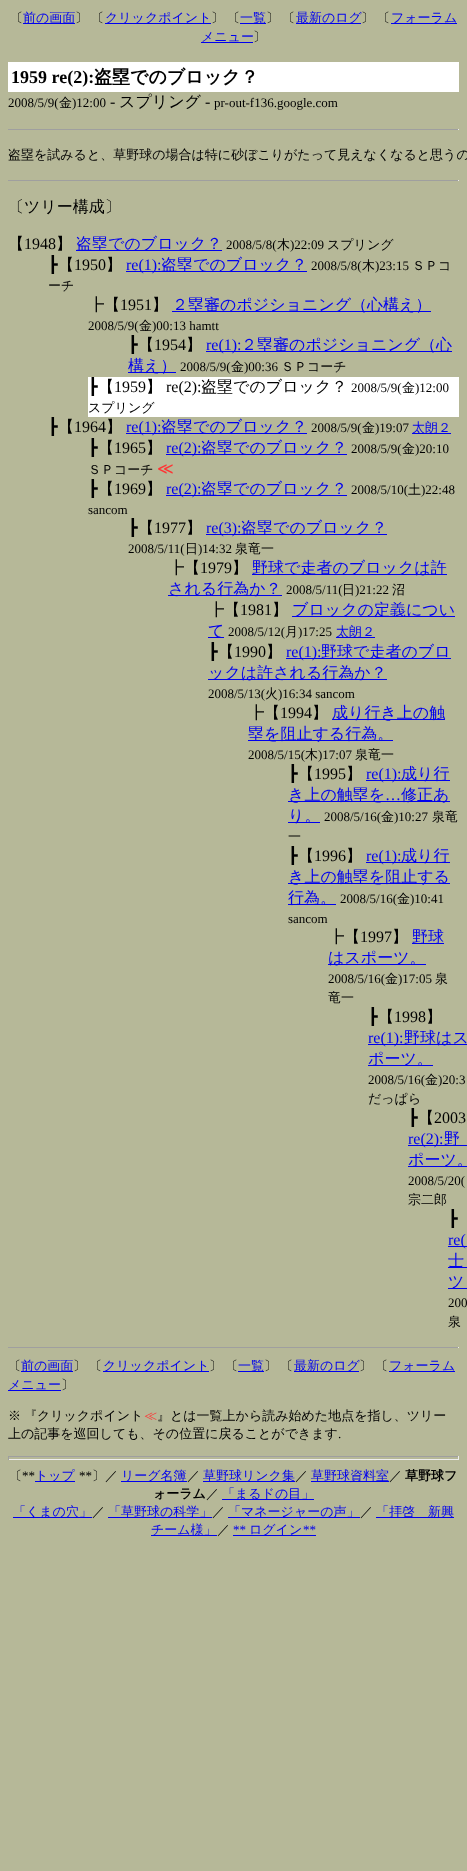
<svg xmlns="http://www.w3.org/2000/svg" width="467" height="1871">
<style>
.a{font:500 13px WenQuanYi Zen Hei;fill:#000}
.b{font:500 13px WenQuanYi Zen Hei;fill:#00e}
.c{font:bold 18px Liberation Serif;fill:#000}
.d{font:bold 18px WenQuanYi Zen Hei;fill:#000}
.e{font:13px Liberation Serif;fill:#000}
.f{font:16px Liberation Serif;fill:#000}
.g{font:500 16px WenQuanYi Zen Hei;fill:#000}
.h{font:500 16px WenQuanYi Zen Hei;fill:#00e}
.i{font:16px DejaVu Sans;fill:#000}
.j{font:16px Liberation Serif;fill:#00e}
.k{font:16px DejaVu Sans;fill:#f33}
.l{font:500 13px WenQuanYi Zen Hei;fill:#f33}
.m{font:bold 13px WenQuanYi Zen Hei;fill:#000}
.n{font:13px Liberation Serif;fill:#00e}
</style>
<rect width="100%" height="100%" fill="#b6b898"/>
<path fill="#00e" d="M23 23h52v1H23z"/>
<path fill="#00e" d="M105 23h106v1H105z"/>
<path fill="#00e" d="M240 23h26v1H240z"/>
<path fill="#00e" d="M296 23h65v1H296z"/>
<path fill="#00e" d="M391 23h66v1H391z"/>
<path fill="#00e" d="M201 42h52v1H201z"/>
<path fill="#fff" d="M8 62h451v30H8z"/>
<path fill="#9f9f9f" d="M8 129h451v1H8z"/>
<path fill="#eee" d="M458 129h1v1H458z"/>
<path fill="#9f9f9f" d="M8 180h451v1H8z"/>
<path fill="#eee" d="M458 180h1v1H458z"/>
<path fill="#00e" d="M76 250h146v1H76z"/>
<path fill="#00e" d="M126 271h181v1H126z"/>
<path fill="#00e" d="M172 311h259v1H172z"/>
<path fill="#00e" d="M206 351h246v1H206z"/>
<path fill="#00e" d="M128 372h48v1H128z"/>
<path fill="#fff" d="M88 377h371v40H88z"/>
<path fill="#00e" d="M126 433h181v1H126z"/>
<path fill="#00e" d="M412 433h39v1H412z"/>
<path fill="#00e" d="M166 454h181v1H166z"/>
<path fill="#00e" d="M166 495h181v1H166z"/>
<path fill="#00e" d="M206 534h181v1H206z"/>
<path fill="#00e" d="M252 574h195v1H252z"/>
<path fill="#00e" d="M168 595h114v1H168z"/>
<path fill="#00e" d="M292 616h163v1H292z"/>
<path fill="#00e" d="M208 637h16v1H208z"/>
<path fill="#00e" d="M336 637h39v1H336z"/>
<path fill="#00e" d="M286 658h165v1H286z"/>
<path fill="#00e" d="M208 679h179v1H208z"/>
<path fill="#00e" d="M332 719h113v1H332z"/>
<path fill="#00e" d="M248 740h145v1H248z"/>
<path fill="#00e" d="M366 780h84v1H366z"/>
<path fill="#00e" d="M288 801h162v1H288z"/>
<path fill="#00e" d="M288 822h32v1H288z"/>
<path fill="#00e" d="M366 862h84v1H366z"/>
<path fill="#00e" d="M288 883h162v1H288z"/>
<path fill="#00e" d="M288 904h48v1H288z"/>
<path fill="#00e" d="M412 943h32v1H412z"/>
<path fill="#00e" d="M328 964h98v1H328z"/>
<path fill="#00e" d="M368 1044h99v1H368z"/>
<path fill="#00e" d="M368 1065h65v1H368z"/>
<path fill="#00e" d="M408 1145h59v1H408z"/>
<path fill="#00e" d="M408 1166h59v1H408z"/>
<path fill="#00e" d="M448 1246h19v1H448z"/>
<path fill="#00e" d="M448 1267h19v1H448z"/>
<path fill="#00e" d="M448 1288h19v1H448z"/>
<path fill="#9f9f9f" d="M8 1347h451v1H8z"/>
<path fill="#eee" d="M458 1347h1v1H458z"/>
<path fill="#00e" d="M21 1371h52v1H21z"/>
<path fill="#00e" d="M103 1371h106v1H103z"/>
<path fill="#00e" d="M238 1371h26v1H238z"/>
<path fill="#00e" d="M294 1371h65v1H294z"/>
<path fill="#00e" d="M389 1371h66v1H389z"/>
<path fill="#00e" d="M8 1390h53v1H8z"/>
<path fill="#9f9f9f" d="M8 1456h451v1H8z"/>
<path fill="#eee" d="M458 1456h1v4H458z"/>
<path fill="#eee" d="M8 1459h451v1H8z"/>
<path fill="#9f9f9f" d="M8 1456h1v4H8z"/>
<path fill="#00e" d="M35 1481h40v1H35z"/>
<path fill="#00e" d="M121 1481h66v1H121z"/>
<path fill="#00e" d="M203 1481h92v1H203z"/>
<path fill="#00e" d="M311 1481h78v1H311z"/>
<path fill="#00e" d="M222 1499h92v1H222z"/>
<path fill="#00e" d="M13 1517h79v1H13z"/>
<path fill="#00e" d="M108 1517h104v1H108z"/>
<path fill="#00e" d="M228 1517h132v1H228z"/>
<path fill="#00e" d="M376 1517h78v1H376z"/>
<path fill="#00e" d="M151 1535h66v1H151z"/>
<path fill="#00e" d="M233 1535h83v1H233z"/>
<text class="a" x="10" y="22">〔</text>
<text class="b" x="23" y="22">前の画面</text>
<text class="a" x="75" y="22" word-spacing="-1">〕 〔</text>
<text class="b" x="105" y="22">クリックポイント</text>
<text class="a" x="211" y="22" word-spacing="-1">〕 〔</text>
<text class="b" x="240" y="22">一覧</text>
<text class="a" x="266" y="22" word-spacing="-1">〕 〔</text>
<text class="b" x="296" y="22">最新のログ</text>
<text class="a" x="361" y="22" word-spacing="-1">〕 〔</text>
<text class="b" x="391" y="22">フォーラム</text>
<text class="b" x="201" y="41">メニュー</text>
<text class="a" x="253" y="41">〕</text>
<text class="c" x="11" y="83">1959 re(2):</text>
<text class="d" x="94" y="83">盗塁でのブロック？</text>
<text class="e" x="8" y="107">2008/5/9(</text>
<text class="a" x="59" y="107">金</text>
<text class="e" x="72" y="107">)12:00</text>
<text class="f" x="110" y="107">-</text>
<text class="g" x="119" y="107">スプリング</text>
<text class="f" x="205" y="107">-</text>
<text class="e" x="214" y="107">pr-out-f136.google.com</text>
<text class="a" x="8" y="159">盗塁を試みると、草野球の場合は特に砂ぼこりがたって見えなくなると思うの</text>
<text class="g" x="8" y="212">〔ツリー構成〕</text>
<text class="g" x="8" y="249">【</text>
<text class="f" x="24" y="249">1948</text>
<text class="g" x="56" y="249">】</text>
<text class="h" x="76" y="249">盗塁でのブロック？</text>
<text class="e" x="226" y="249">2008/5/8(</text>
<text class="a" x="277" y="249">木</text>
<text class="e" x="290" y="249">)22:09</text>
<text class="a" x="327" y="249">スプリング</text>
<text class="i" x="48" y="270">┣</text>
<text class="g" x="58" y="270">【</text>
<text class="f" x="74" y="270">1950</text>
<text class="g" x="106" y="270">】</text>
<text class="j" x="126" y="270">re(1):</text>
<text class="h" x="161" y="270">盗塁でのブロック？</text>
<text class="e" x="311" y="270">2008/5/8(</text>
<text class="a" x="362" y="270">木</text>
<text class="e" x="375" y="270">)23:15</text>
<text class="a" x="412" y="270">ＳＰコ</text>
<text class="a" x="48" y="290">ーチ</text>
<text class="g" x="88" y="310">┣【</text>
<text class="f" x="120" y="310">1951</text>
<text class="g" x="152" y="310">】</text>
<text class="h" x="172" y="310">２塁審のポジショニング（心構え）</text>
<text class="e" x="88" y="330">2008/5/9(</text>
<text class="a" x="139" y="330">金</text>
<text class="e" x="152" y="330">)00:13 hamtt</text>
<text class="i" x="128" y="350">┣</text>
<text class="g" x="138" y="350">【</text>
<text class="f" x="154" y="350">1954</text>
<text class="g" x="186" y="350">】</text>
<text class="j" x="206" y="350">re(1):</text>
<text class="h" x="241" y="350">２塁審のポジショニング（心</text>
<text class="h" x="128" y="371">構え）</text>
<text class="e" x="180" y="371">2008/5/9(</text>
<text class="a" x="231" y="371">金</text>
<text class="e" x="244" y="371">)00:36</text>
<text class="a" x="281" y="371">ＳＰコーチ</text>
<text class="i" x="88" y="392">┣</text>
<text class="g" x="98" y="392">【</text>
<text class="f" x="114" y="392">1959</text>
<text class="g" x="146" y="392">】</text>
<text class="f" x="166" y="392">re(2):</text>
<text class="g" x="201" y="392">盗塁でのブロック？</text>
<text class="e" x="351" y="392">2008/5/9(</text>
<text class="a" x="402" y="392">金</text>
<text class="e" x="415" y="392">)12:00</text>
<text class="a" x="88" y="412">スプリング</text>
<text class="i" x="48" y="432">┣</text>
<text class="g" x="58" y="432">【</text>
<text class="f" x="74" y="432">1964</text>
<text class="g" x="106" y="432">】</text>
<text class="j" x="126" y="432">re(1):</text>
<text class="h" x="161" y="432">盗塁でのブロック？</text>
<text class="e" x="311" y="432">2008/5/9(</text>
<text class="a" x="362" y="432">金</text>
<text class="e" x="375" y="432">)19:07</text>
<text class="b" x="412" y="432">太朗２</text>
<text class="i" x="88" y="453">┣</text>
<text class="g" x="98" y="453">【</text>
<text class="f" x="114" y="453">1965</text>
<text class="g" x="146" y="453">】</text>
<text class="j" x="166" y="453">re(2):</text>
<text class="h" x="201" y="453">盗塁でのブロック？</text>
<text class="e" x="351" y="453">2008/5/9(</text>
<text class="a" x="402" y="453">金</text>
<text class="e" x="415" y="453">)20:10</text>
<text class="a" x="88" y="474">ＳＰコーチ</text>
<text class="k" x="157" y="474">≪</text>
<text class="i" x="88" y="494">┣</text>
<text class="g" x="98" y="494">【</text>
<text class="f" x="114" y="494">1969</text>
<text class="g" x="146" y="494">】</text>
<text class="j" x="166" y="494">re(2):</text>
<text class="h" x="201" y="494">盗塁でのブロック？</text>
<text class="e" x="351" y="494">2008/5/10(</text>
<text class="a" x="408" y="494">土</text>
<text class="e" x="421" y="494">)22:48</text>
<text class="e" x="88" y="514">sancom</text>
<text class="i" x="128" y="533">┣</text>
<text class="g" x="138" y="533">【</text>
<text class="f" x="154" y="533">1977</text>
<text class="g" x="186" y="533">】</text>
<text class="j" x="206" y="533">re(3):</text>
<text class="h" x="241" y="533">盗塁でのブロック？</text>
<text class="e" x="128" y="553">2008/5/11(</text>
<text class="a" x="185" y="553">日</text>
<text class="e" x="198" y="553">)14:32</text>
<text class="a" x="235" y="553">泉竜一</text>
<text class="g" x="168" y="573">┣【</text>
<text class="f" x="200" y="573">1979</text>
<text class="g" x="232" y="573">】</text>
<text class="h" x="252" y="573">野球で走者のブロックは許</text>
<text class="h" x="168" y="594">される行為か？</text>
<text class="e" x="286" y="594">2008/5/11(</text>
<text class="a" x="342" y="594">日</text>
<text class="e" x="355" y="594">)21:22</text>
<text class="a" x="392" y="594">沼</text>
<text class="g" x="208" y="615">┣【</text>
<text class="f" x="240" y="615">1981</text>
<text class="g" x="272" y="615">】</text>
<text class="h" x="292" y="615">ブロックの定義につい</text>
<text class="h" x="208" y="636">て</text>
<text class="e" x="228" y="636">2008/5/12(</text>
<text class="a" x="285" y="636">月</text>
<text class="e" x="298" y="636">)17:25</text>
<text class="b" x="336" y="636">太朗２</text>
<text class="i" x="208" y="657">┣</text>
<text class="g" x="218" y="657">【</text>
<text class="f" x="234" y="657">1990</text>
<text class="g" x="266" y="657">】</text>
<text class="j" x="286" y="657">re(1):</text>
<text class="h" x="321" y="657">野球で走者のブロ</text>
<text class="h" x="208" y="678">ックは許される行為か？</text>
<text class="e" x="208" y="698">2008/5/13(</text>
<text class="a" x="265" y="698">火</text>
<text class="e" x="278" y="698">)16:34 sancom</text>
<text class="g" x="248" y="718">┣【</text>
<text class="f" x="280" y="718">1994</text>
<text class="g" x="312" y="718">】</text>
<text class="h" x="332" y="718">成り行き上の触</text>
<text class="h" x="248" y="739">塁を阻止する行為。</text>
<text class="e" x="248" y="759">2008/5/15(</text>
<text class="a" x="305" y="759">木</text>
<text class="e" x="318" y="759">)17:07</text>
<text class="a" x="355" y="759">泉竜一</text>
<text class="i" x="288" y="779">┣</text>
<text class="g" x="298" y="779">【</text>
<text class="f" x="314" y="779">1995</text>
<text class="g" x="346" y="779">】</text>
<text class="j" x="366" y="779">re(1):</text>
<text class="h" x="401" y="779">成り行</text>
<text class="h" x="288" y="800">き上の触塁を</text>
<text class="j" x="385" y="800">…</text>
<text class="h" x="401" y="800">修正あ</text>
<text class="h" x="288" y="821">り。</text>
<text class="e" x="324" y="821">2008/5/16(</text>
<text class="a" x="381" y="821">金</text>
<text class="e" x="394" y="821">)10:27</text>
<text class="a" x="432" y="821">泉竜</text>
<text class="a" x="288" y="841">一</text>
<text class="i" x="288" y="861">┣</text>
<text class="g" x="298" y="861">【</text>
<text class="f" x="314" y="861">1996</text>
<text class="g" x="346" y="861">】</text>
<text class="j" x="366" y="861">re(1):</text>
<text class="h" x="401" y="861">成り行</text>
<text class="h" x="288" y="882">き上の触塁を阻止する</text>
<text class="h" x="288" y="903">行為。</text>
<text class="e" x="340" y="903">2008/5/16(</text>
<text class="a" x="397" y="903">金</text>
<text class="e" x="410" y="903">)10:41</text>
<text class="e" x="288" y="923">sancom</text>
<text class="g" x="328" y="942">┣【</text>
<text class="f" x="360" y="942">1997</text>
<text class="g" x="392" y="942">】</text>
<text class="h" x="412" y="942">野球</text>
<text class="h" x="328" y="963">はスポーツ。</text>
<text class="e" x="328" y="983">2008/5/16(</text>
<text class="a" x="385" y="983">金</text>
<text class="e" x="398" y="983">)17:05</text>
<text class="a" x="435" y="983">泉</text>
<text class="a" x="328" y="1002">竜一</text>
<text class="i" x="368" y="1022">┣</text>
<text class="g" x="378" y="1022">【</text>
<text class="f" x="394" y="1022">1998</text>
<text class="g" x="426" y="1022">】</text>
<text class="j" x="368" y="1043">re(1):</text>
<text class="h" x="404" y="1043">野球はス</text>
<text class="h" x="368" y="1064">ポーツ。</text>
<text class="e" x="368" y="1084">2008/5/16(</text>
<text class="a" x="425" y="1084">金</text>
<text class="e" x="438" y="1084">)20:3</text>
<text class="a" x="368" y="1103">だっぱら</text>
<text class="i" x="408" y="1123">┣</text>
<text class="g" x="418" y="1123">【</text>
<text class="f" x="434" y="1123">2003</text>
<text class="j" x="408" y="1144">re(2):</text>
<text class="h" x="444" y="1144">野</text>
<text class="h" x="408" y="1165">ポーツ。</text>
<text class="e" x="408" y="1185">2008/5/20(</text>
<text class="a" x="408" y="1204">宗二郎</text>
<text class="i" x="448" y="1224">┣</text>
<text class="j" x="448" y="1245">re(</text>
<text class="h" x="448" y="1266">士</text>
<text class="h" x="448" y="1287">ツ</text>
<text class="e" x="448" y="1307">200</text>
<text class="a" x="448" y="1326">泉</text>
<text class="a" x="8" y="1370">〔</text>
<text class="b" x="21" y="1370">前の画面</text>
<text class="a" x="73" y="1370" word-spacing="-1">〕 〔</text>
<text class="b" x="103" y="1370">クリックポイント</text>
<text class="a" x="209" y="1370" word-spacing="-1">〕 〔</text>
<text class="b" x="238" y="1370">一覧</text>
<text class="a" x="264" y="1370" word-spacing="-1">〕 〔</text>
<text class="b" x="294" y="1370">最新のログ</text>
<text class="a" x="359" y="1370" word-spacing="-1">〕 〔</text>
<text class="b" x="389" y="1370">フォーラム</text>
<text class="b" x="8" y="1389">メニュー</text>
<text class="a" x="61" y="1389">〕</text>
<text class="a" x="8" y="1420" word-spacing="-1">※ 『クリックポイント</text>
<text class="l" x="144" y="1420">≪</text>
<text class="a" x="157" y="1420">』とは一覧上から読み始めた地点を指し、ツリー</text>
<text class="a" x="8" y="1438">上の記事を巡回しても、その位置に戻ることができます</text>
<text class="e" x="338" y="1438">.</text>
<text class="a" x="9" y="1480">〔</text>
<text class="e" x="22" y="1480">**</text>
<text class="b" x="35" y="1480">トップ</text>
<text class="e" x="79" y="1480">**</text>
<text class="a" x="92" y="1480">〕／</text>
<text class="b" x="121" y="1480">リーグ名簿</text>
<text class="a" x="187" y="1480">／</text>
<text class="b" x="203" y="1480">草野球リンク集</text>
<text class="a" x="295" y="1480">／</text>
<text class="b" x="311" y="1480">草野球資料室</text>
<text class="a" x="389" y="1480">／</text>
<text class="m" x="405" y="1480">草野球フ</text>
<text class="m" x="153" y="1498">ォーラム</text>
<text class="a" x="206" y="1498">／</text>
<text class="b" x="222" y="1498">「まるドの目」</text>
<text class="b" x="13" y="1516">「くまの穴」</text>
<text class="a" x="92" y="1516">／</text>
<text class="b" x="108" y="1516">「草野球の科学」</text>
<text class="a" x="212" y="1516">／</text>
<text class="b" x="228" y="1516">「マネージャーの声」</text>
<text class="a" x="360" y="1516">／</text>
<text class="b" x="376" y="1516">「拝啓　新興</text>
<text class="b" x="151" y="1534">チーム様」</text>
<text class="a" x="217" y="1534">／</text>
<text class="n" x="233" y="1534">**</text>
<text class="b" x="249" y="1534">ログイン</text>
<text class="n" x="303" y="1534">**</text>
</svg>
